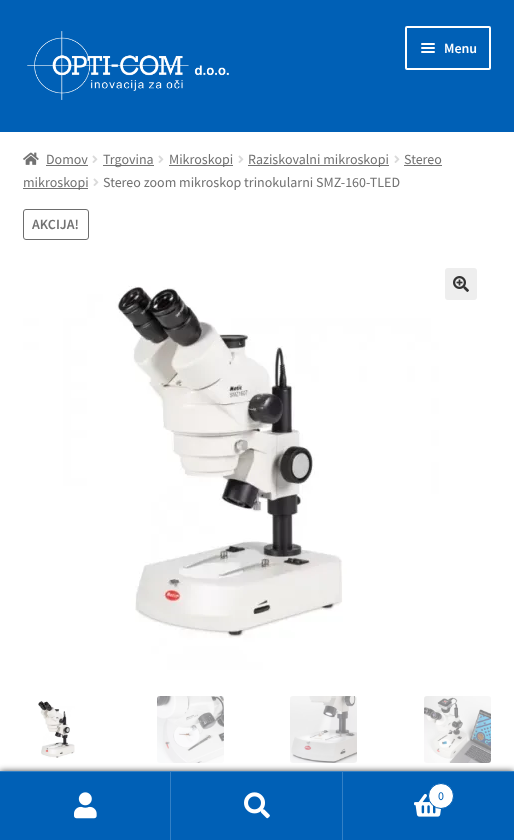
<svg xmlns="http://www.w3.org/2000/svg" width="514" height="840">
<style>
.a{font:600 14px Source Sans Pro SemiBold;fill:#fff}
.b{font:14px Source Sans Pro;fill:#727272}
.c{font:600 14px Source Sans Pro SemiBold;fill:#727272}
.d{font:12px Source Sans Pro;fill:#0060b6}
</style>
<rect width="100%" height="100%" fill="#fff"/>
<path fill="#0060b6" d="M0 0h514v132H0z"/>
<image href="1.png" x="27" y="31" width="202" height="69"/>
<rect fill="none" stroke="#fff" stroke-width="2" x="406" y="27" width="84" height="42" rx="1"/>
<rect fill="#fff" x="421" y="43" width="14" height="2" rx="1"/>
<rect fill="#fff" x="421" y="47" width="14" height="2" rx="1"/>
<rect fill="#fff" x="421" y="51" width="14" height="2" rx="1"/>
<image href="2.png" x="23" y="152" width="16" height="13"/>
<path fill="#727272" d="M46 165h42v1H46z"/>
<image href="3.png" x="92" y="155" width="6" height="8"/>
<path fill="#727272" d="M103 165h51v1H103z"/>
<image href="3.png" x="158" y="155" width="6" height="8"/>
<path fill="#727272" d="M169 165h64v1H169z"/>
<image href="3.png" x="238" y="155" width="6" height="8"/>
<path fill="#727272" d="M248 165h141v1H248z"/>
<image href="3.png" x="394" y="155" width="6" height="8"/>
<path fill="#727272" d="M404 165h38v1H404z"/>
<path fill="#727272" d="M23 188h65v1H23z"/>
<image href="3.png" x="93" y="178" width="6" height="8"/>
<rect fill="none" stroke="#6d6d6d" x="23.5" y="209.5" width="65" height="30" rx="2.5"/>
<image href="4.png" x="23" y="254" width="416" height="416"/>
<rect fill="#eee" x="445" y="268" width="32" height="32" rx="3"/>
<image href="5.png" x="453" y="276" width="16" height="16"/>
<image href="6.png" x="38" y="701" width="37" height="57"/>
<image href="7.png" x="157" y="696" width="67" height="67"/>
<image href="8.png" x="290" y="696" width="67" height="67"/>
<image href="9.png" x="424" y="696" width="67" height="67"/>
<path fill="#000000b3" filter="blur(3px)" d="M0 771h514v69H0z"/>
<path fill="#3380c5" d="M0 771h514v1H0z"/>
<path fill="#0060b6" d="M0 772h170v68H0z"/>
<path fill="#3380c5" d="M170 772h1v68H170z"/>
<image href="10.png" x="74" y="792" width="23" height="27"/>
<path fill="#0060b6" d="M171 772h171v68H171z"/>
<path fill="#3380c5" d="M342 772h1v68H342z"/>
<image href="11.png" x="244" y="792" width="26" height="27"/>
<path fill="#0060b6" d="M343 772h171v68H343z"/>
<image href="12.png" x="414" y="794" width="28" height="23"/>
<circle fill="#fff" stroke="#0060b6" cx="441" cy="796" r="12.5"/>
<text class="a" x="444" y="53">Menu</text>
<text class="b" x="46" y="164">Domov</text>
<text class="b" x="103" y="164">Trgovina</text>
<text class="b" x="169" y="164">Mikroskopi</text>
<text class="b" x="248" y="164">Raziskovalni mikroskopi</text>
<text class="b" x="404" y="164">Stereo</text>
<text class="b" x="23" y="187">mikroskopi</text>
<text class="b" x="103" y="187">Stereo zoom mikroskop trinokularni SMZ-160-TLED</text>
<text class="c" x="32" y="229">AKCIJA!</text>
<text class="d" x="438" y="800">0</text>
</svg>
